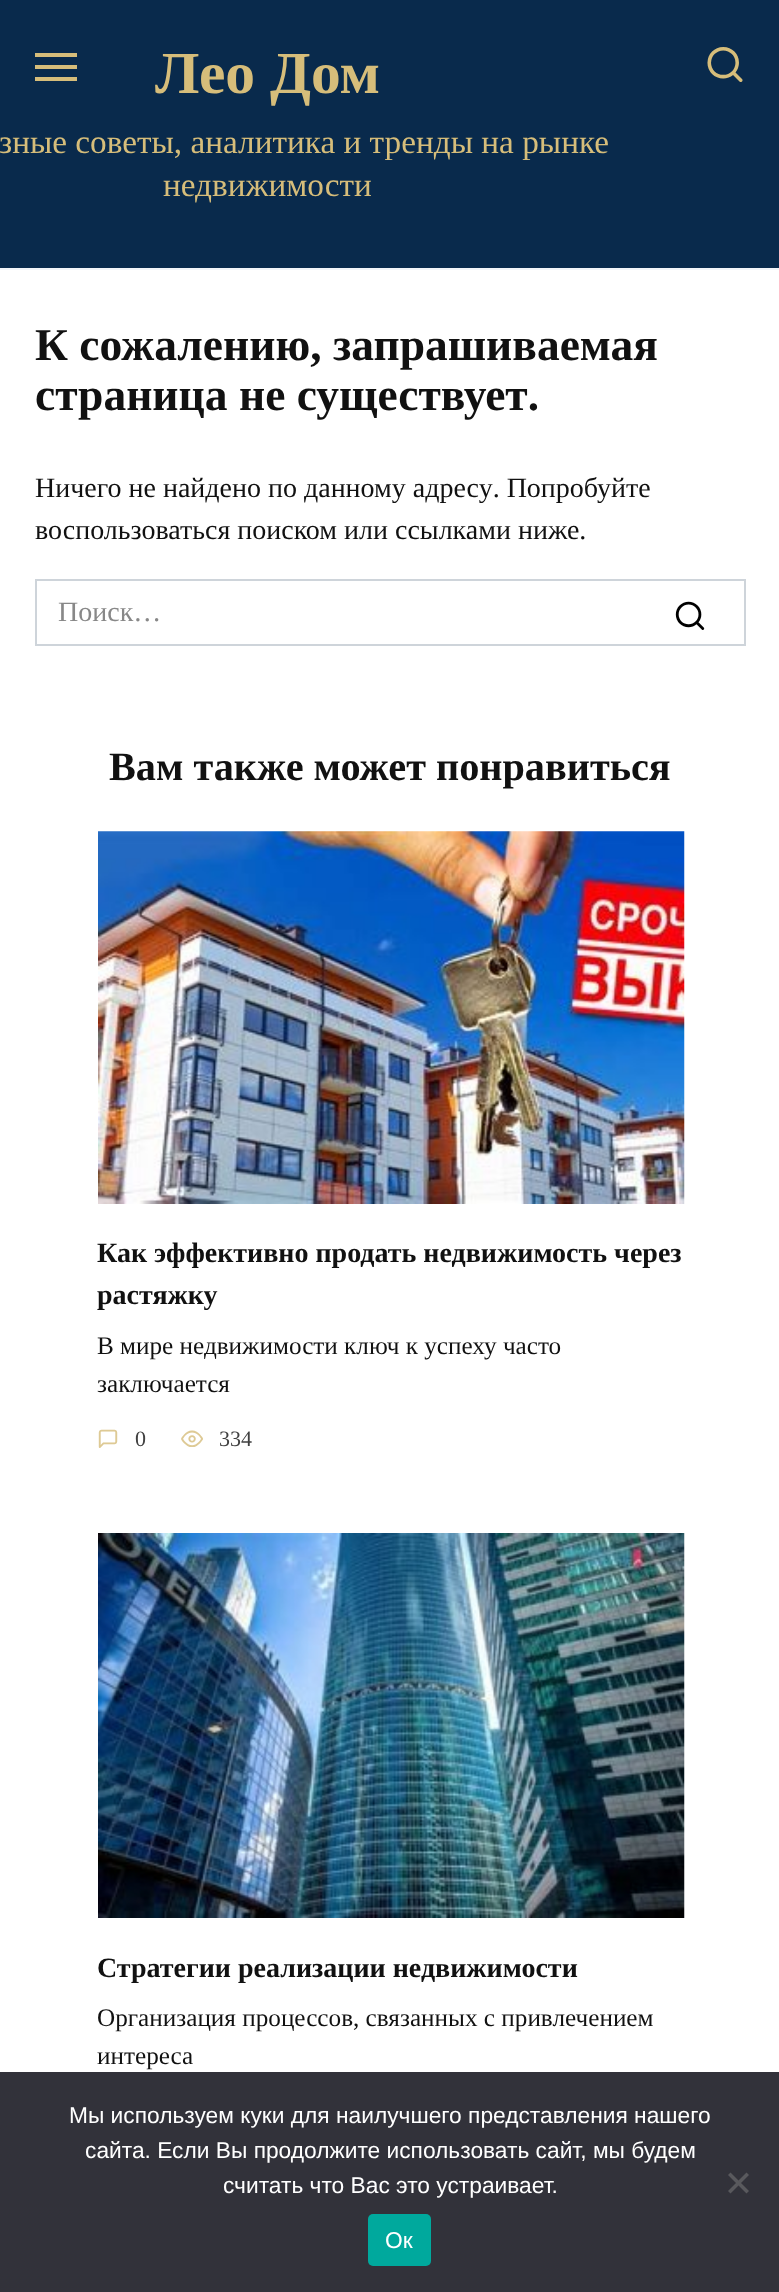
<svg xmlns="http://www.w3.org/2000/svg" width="779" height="2292">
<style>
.a{font:42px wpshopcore;fill:#d6bd7a}
.b{font:bold 59.5px Tinos;fill:#d6bd7a}
.c{font:33.25px Tinos;fill:#d6bd7a}
.d{font:bold 45.5px Tinos;fill:#111}
.e{font:28px Tinos;fill:#111}
.f{font:28px Tinos;fill:#888}
.g{font:34px wpshopcore;fill:#000}
.h{font:bold 40.25px Tinos;fill:#111}
.i{font:bold 28px Tinos;fill:#111}
.j{font:25.2px Tinos;fill:#111}
.k{font:22px wpshopcore;fill:#deca95}
.l{font:22px Tinos;fill:#414141}
.m{font:22.75px Liberation Sans;fill:#fff}
</style>
<rect width="100%" height="100%" fill="#fff"/>
<path fill="#092a4c" d="M0 0h779v268H0z"/>
<path fill="#f2f5f9" d="M0 268h779v2H0z"/>
<path fill="#d6bd7a" d="M35 53h42v4H35z"/>
<path fill="#d6bd7a" d="M35 65h42v4H35z"/>
<path fill="#d6bd7a" d="M35 77h42v4H35z"/>
<path fill="none" stroke="#ced4da" stroke-width="2" d="M36 580h709v65H36z"/>
<image href="1.png" x="98" y="831" width="587" height="373"/>
<image href="2.png" x="98" y="1533" width="587" height="385"/>
<path fill="#32323a" d="M0 2072h779v220H0z"/>
<path fill="#59595d" d="M746.5 2172.5l2.5 2.5l-18.5 18.5l-2.5-2.5z"/>
<path fill="#59595d" d="M728 2175l2.5-2.5l18.5 18.5l-2.5 2.5z"/>
<rect fill="#00a99d" x="368" y="2214" width="63" height="52" rx="5"/>
<text class="a" x="704" y="82">🔍</text>
<text class="b" x="155" y="93">Лео Дом</text>
<text class="c" x="-1" y="153">зные советы, аналитика и тренды на рынке</text>
<text class="c" x="163" y="196">недвижимости</text>
<text class="d" x="35" y="360">К сожалению, запрашиваемая</text>
<text class="d" x="35" y="410">страница не существует.</text>
<text class="e" x="35" y="497">Ничего не найдено по данному адресу. Попробуйте</text>
<text class="e" x="35" y="539">воспользоваться поиском или ссылками ниже.</text>
<text class="f" x="58" y="621">Поиск…</text>
<text class="g" x="673" y="630">🔍</text>
<text class="h" x="109" y="780">Вам также может понравиться</text>
<text class="i" x="97" y="1262">Как эффективно продать недвижимость через</text>
<text class="i" x="97" y="1304">растяжку</text>
<text class="j" x="97" y="1354">В мире недвижимости ключ к успеху часто</text>
<text class="j" x="97" y="1392">заключается</text>
<text class="k" x="97" y="1448">💬</text>
<text class="l" x="135" y="1446">0</text>
<text class="k" x="181" y="1448">👀</text>
<text class="l" x="219" y="1446">334</text>
<text class="i" x="97" y="1977">Стратегии реализации недвижимости</text>
<text class="j" x="97" y="2026">Организация процессов, связанных с привлечением</text>
<text class="j" x="97" y="2064">интереса</text>
<text class="m" x="69" y="2123">Мы используем куки для наилучшего представления нашего</text>
<text class="m" x="85" y="2158">сайта. Если Вы продолжите использовать сайт, мы будем</text>
<text class="m" x="223" y="2193">считать что Вас это устраивает.</text>
<text class="m" x="385" y="2248">Ок</text>
</svg>
